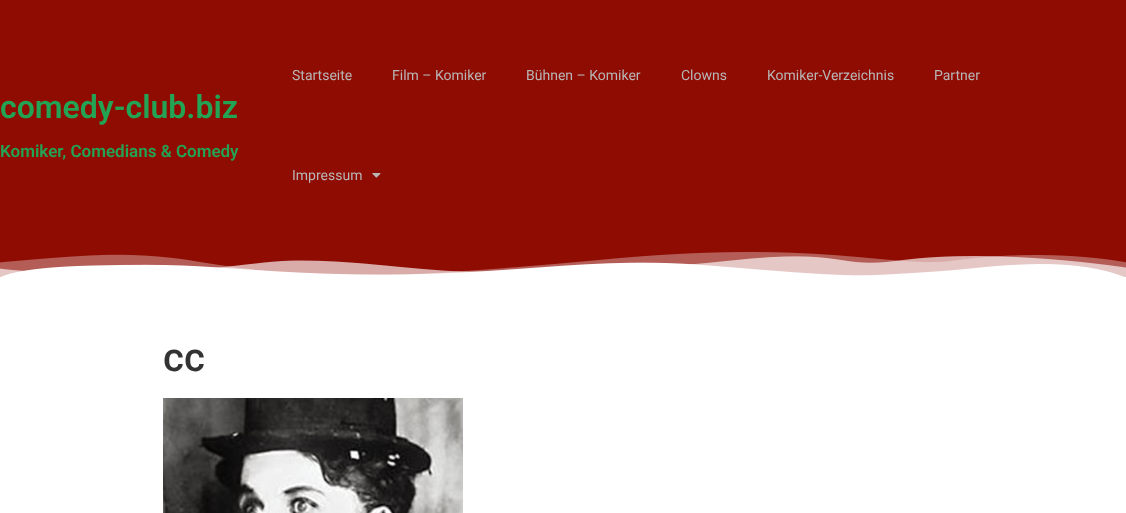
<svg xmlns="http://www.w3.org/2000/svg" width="1126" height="513">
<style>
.a{font:600 32px Roboto;fill:#23a455}
.b{font:600 17px Roboto;fill:#23a455}
.c{font:14px Roboto;fill:#b8b6b6}
.d{font:500 40px Roboto;fill:#333}
</style>
<rect width="100%" height="100%" fill="#fff"/>
<path fill="#8f0c03" d="M0 0h1126v277H0z"/>
<image href="1.png" x="372" y="173" width="9" height="5"/>
<image href="2.png" x="0" y="252" width="1126" height="25"/>
<image href="3.png" x="163" y="398" width="300" height="115"/>
<text class="a" x="0" y="118">comedy-club.biz</text>
<text class="b" x="0" y="157">Komiker, Comedians &amp; Comedy</text>
<text class="c" x="292" y="80">Startseite</text>
<text class="c" x="392" y="80">Film – Komiker</text>
<text class="c" x="526" y="80">Bühnen – Komiker</text>
<text class="c" x="681" y="80">Clowns</text>
<text class="c" x="767" y="80">Komiker-Verzeichnis</text>
<text class="c" x="934" y="80">Partner</text>
<text class="c" x="292" y="180">Impressum</text>
<text class="d" x="163" y="371">cc</text>
</svg>
